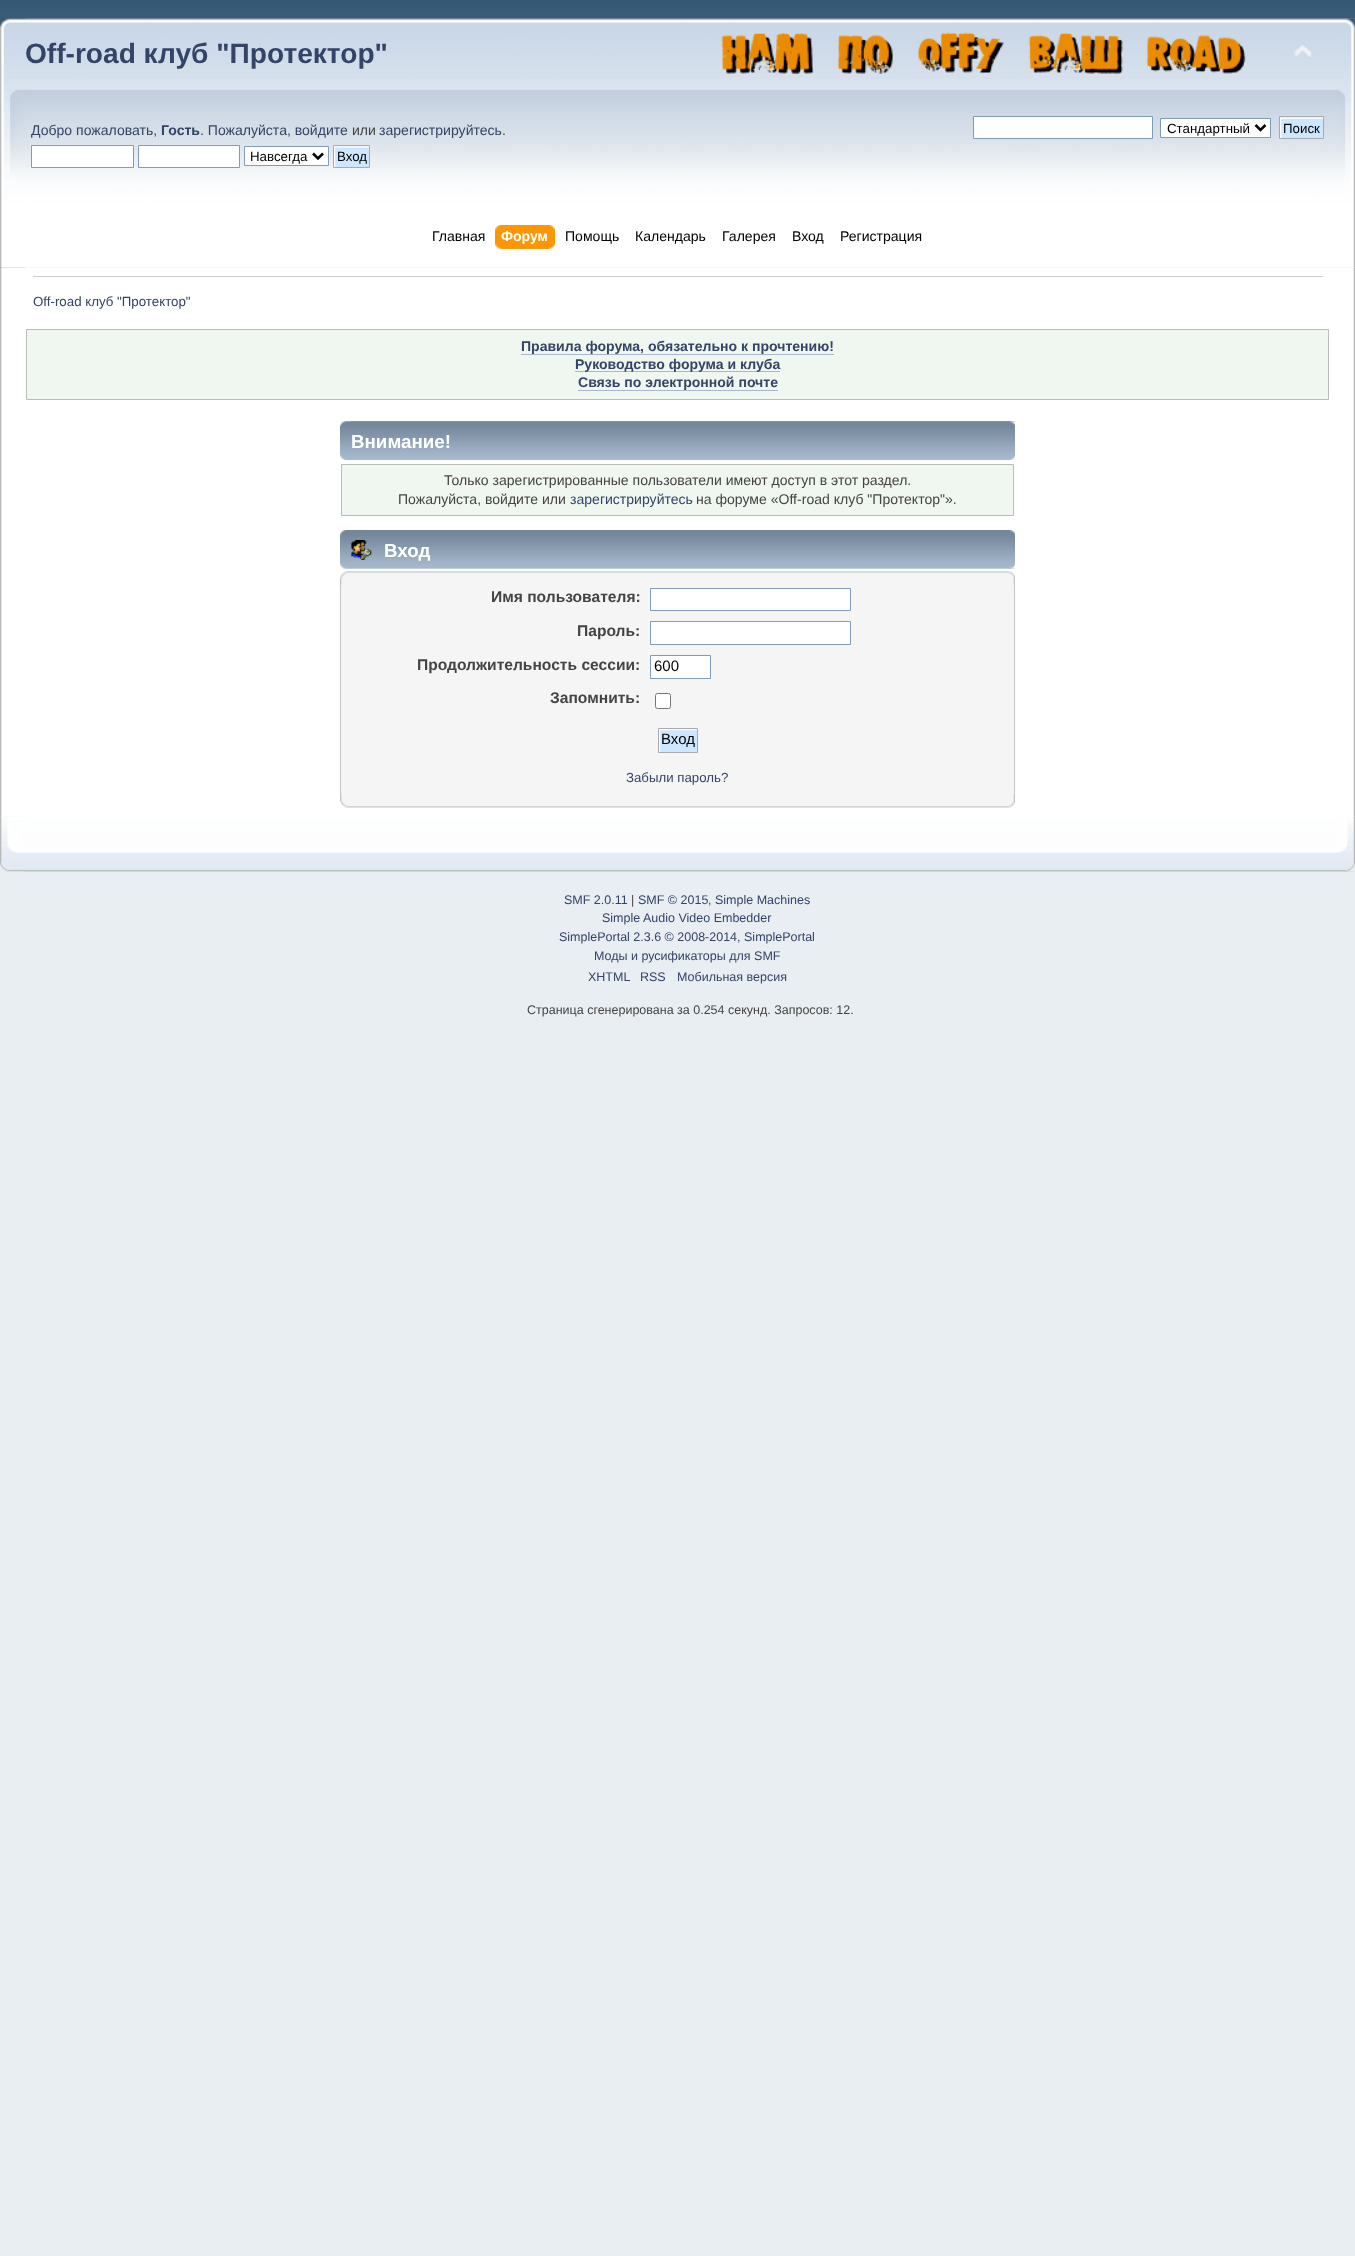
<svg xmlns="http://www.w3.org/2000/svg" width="1355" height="2256">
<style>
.a{font:bold 28.1px Liberation Sans;fill:#346}
.b{font:14.05px Liberation Sans;fill:#346}
.c{font:bold 14.05px Liberation Sans;fill:#346}
.d{font:14.05px Liberation Sans;fill:#444}
.e{font:13.3px Liberation Sans;fill:#000}
.f{font:14.05px Liberation Sans;fill:#000}
.g{font:bold 14.05px Liberation Sans;fill:#fff}
.h{font:13.3px Liberation Sans;fill:#346}
.i{font:bold 18.75px Liberation Sans;fill:#fff}
.j{font:bold 15.6px Liberation Sans;fill:#444}
.k{font:15px Liberation Sans;fill:#000}
.l{font:13.25px Liberation Sans;fill:#346}
.m{font:12.5px Liberation Sans;fill:#346}
.n{font:12.5px Liberation Sans;fill:#444}
</style>
<rect width="100%" height="100%" fill="#e9eef2"/>
<image href="1.png" x="0" y="0" width="1355" height="268"/>
<image href="2.png" x="0" y="18" width="1355" height="250"/>
<image href="3.png" x="25" y="18" width="1330" height="250"/>
<image href="4.png" x="721" y="32" width="525" height="43"/>
<image href="5.png" x="1294" y="44" width="18" height="15"/>
<path fill="#fff" stroke="#7f9db9" d="M31.5 145.5h102v22H31.5z"/>
<path fill="#fff" stroke="#7f9db9" d="M138.5 145.5h101v22H138.5z"/>
<path fill="#fff" stroke="#7f9db9" d="M244.5 146.5h84v19H244.5z"/>
<path fill="none" stroke="#000" stroke-width="2.5" d="M313 153.5l5 5l5-5"/>
<image href="6.png" x="334" y="146" width="35" height="21"/>
<path fill="none" stroke="#aaa" d="M333.5 145.5h36v22H333.5z"/>
<path fill="#fff" stroke="#7f9db9" d="M973.5 116.5h179v22H973.5z"/>
<path fill="#fff" stroke="#7f9db9" d="M1160.5 118.5h110v19H1160.5z"/>
<path fill="none" stroke="#000" stroke-width="2.5" d="M1255.5 125l5 5l5-5"/>
<path fill="#cde7ff" d="M1280 117h43v1H1280z"/>
<image href="7.png" x="1280" y="117" width="43" height="21"/>
<path fill="none" stroke="#aaa" d="M1279.5 116.5h44v22H1279.5z"/>
<image href="8.png" x="501" y="225" width="54" height="24"/>
<image href="9.png" x="495" y="225" width="54" height="24"/>
<image href="10.png" x="0" y="267" width="1355" height="550"/>
<image href="11.png" x="25" y="267" width="1330" height="550"/>
<path fill="#ccc" d="M33 276h1290v1H33z"/>
<path fill="#f0f6f0" stroke="#bbb" d="M26.5 329.5h1302v70H26.5z"/>
<path fill="#a8b6cf" d="M521 354h313v1H521z"/>
<path fill="#a8b6cf" d="M575 371h205v1H575z"/>
<path fill="#a8b6cf" d="M578 390h200v1H578z"/>
<image href="12.png" x="340" y="421" width="675" height="39"/>
<image href="13.png" x="351" y="421" width="664" height="39"/>
<path fill="#f0f6f0" stroke="#bbb" d="M341.5 464.5h672v51H341.5z"/>
<image href="14.png" x="340" y="530" width="675" height="39"/>
<image href="15.png" x="1009" y="530" width="6" height="39"/>
<image href="16.png" x="351" y="540" width="21" height="20"/>
<image href="17.png" x="340" y="571" width="668" height="14"/>
<image href="18.png" x="1008" y="571" width="7" height="14"/>
<path fill="#f5f5f5" d="M341 585h673v209H341z"/>
<path fill="#c5c5c5" d="M1014 585h1v209H1014z"/>
<path fill="#c5c5c5" d="M340 585h1v209H340z"/>
<path fill="#fff" stroke="#7f9db9" d="M650.5 588.5h200v22H650.5z"/>
<path fill="#fff" stroke="#7f9db9" d="M650.5 621.5h200v23H650.5z"/>
<path fill="#fff" stroke="#7f9db9" d="M650.5 655.5h60v23H650.5z"/>
<rect fill="#fff" stroke="#767676" x="655.5" y="693.5" width="15" height="15" rx="2"/>
<image href="19.png" x="659" y="729" width="38" height="23"/>
<path fill="none" stroke="#aaa" d="M658.5 728.5h39v24H658.5z"/>
<image href="20.png" x="340" y="793" width="675" height="15"/>
<image href="21.png" x="1008" y="794" width="7" height="14"/>
<image href="22.png" x="0" y="816" width="1355" height="56"/>
<image href="23.png" x="25" y="816" width="1330" height="56"/>
<text class="a" x="25" y="63">Off-road клуб "Протектор"</text>
<text class="b" x="31" y="135">Добро пожаловать,</text>
<text class="c" x="161" y="135">Гость</text>
<text class="b" x="200" y="135">. Пожалуйста, войдите</text>
<text class="d" x="352" y="135">или</text>
<text class="b" x="379" y="135">зарегистрируйтесь</text>
<text class="d" x="502" y="135">.</text>
<text class="e" x="250" y="161">Навсегда</text>
<text class="e" x="337" y="161">Вход</text>
<text class="e" x="1167" y="133">Стандартный</text>
<text class="e" x="1283" y="133">Поиск</text>
<text class="f" x="432" y="241">Главная</text>
<text class="g" x="501" y="241">Форум</text>
<text class="f" x="565" y="241">Помощь</text>
<text class="f" x="635" y="241">Календарь</text>
<text class="f" x="722" y="241">Галерея</text>
<text class="f" x="792" y="241">Вход</text>
<text class="f" x="840" y="241">Регистрация</text>
<text class="h" x="33" y="306">Off-road клуб "Протектор"</text>
<text class="c" x="521" y="351">Правила форума, обязательно к прочтению!</text>
<text class="c" x="575" y="369">Руководство форума и клуба</text>
<text class="c" x="578" y="387">Связь по электронной почте</text>
<text class="i" x="351" y="448">Внимание!</text>
<text class="d" x="444" y="485">Только зарегистрированные пользователи имеют доступ в этот раздел.</text>
<text class="d" x="398" y="504">Пожалуйста, войдите или</text>
<text class="b" x="570" y="504">зарегистрируйтесь</text>
<text class="d" x="696" y="504">на форуме «Off-road клуб "Протектор"».</text>
<text class="i" x="384" y="557">Вход</text>
<text class="j" x="491" y="602">Имя пользователя:</text>
<text class="j" x="577" y="636">Пароль:</text>
<text class="j" x="417" y="670">Продолжительность сессии:</text>
<text class="k" x="654" y="671">600</text>
<text class="j" x="550" y="703">Запомнить:</text>
<text class="k" x="661" y="744">Вход</text>
<text class="l" x="626" y="782">Забыли пароль?</text>
<text class="m" x="564" y="904">SMF 2.0.11</text>
<text class="n" x="631" y="904">|</text>
<text class="m" x="638" y="904">SMF © 2015</text>
<text class="n" x="708" y="904">,</text>
<text class="m" x="715" y="904">Simple Machines</text>
<text class="m" x="602" y="922">Simple Audio Video Embedder</text>
<text class="m" x="559" y="941">SimplePortal 2.3.6 © 2008-2014, SimplePortal</text>
<text class="m" x="594" y="960">Моды и русификаторы для SMF</text>
<text class="m" x="588" y="981">XHTML</text>
<text class="m" x="640" y="981">RSS</text>
<text class="m" x="677" y="981">Мобильная версия</text>
<text class="n" x="527" y="1014">Страница сгенерирована за 0.254 секунд. Запросов: 12.</text>
</svg>
